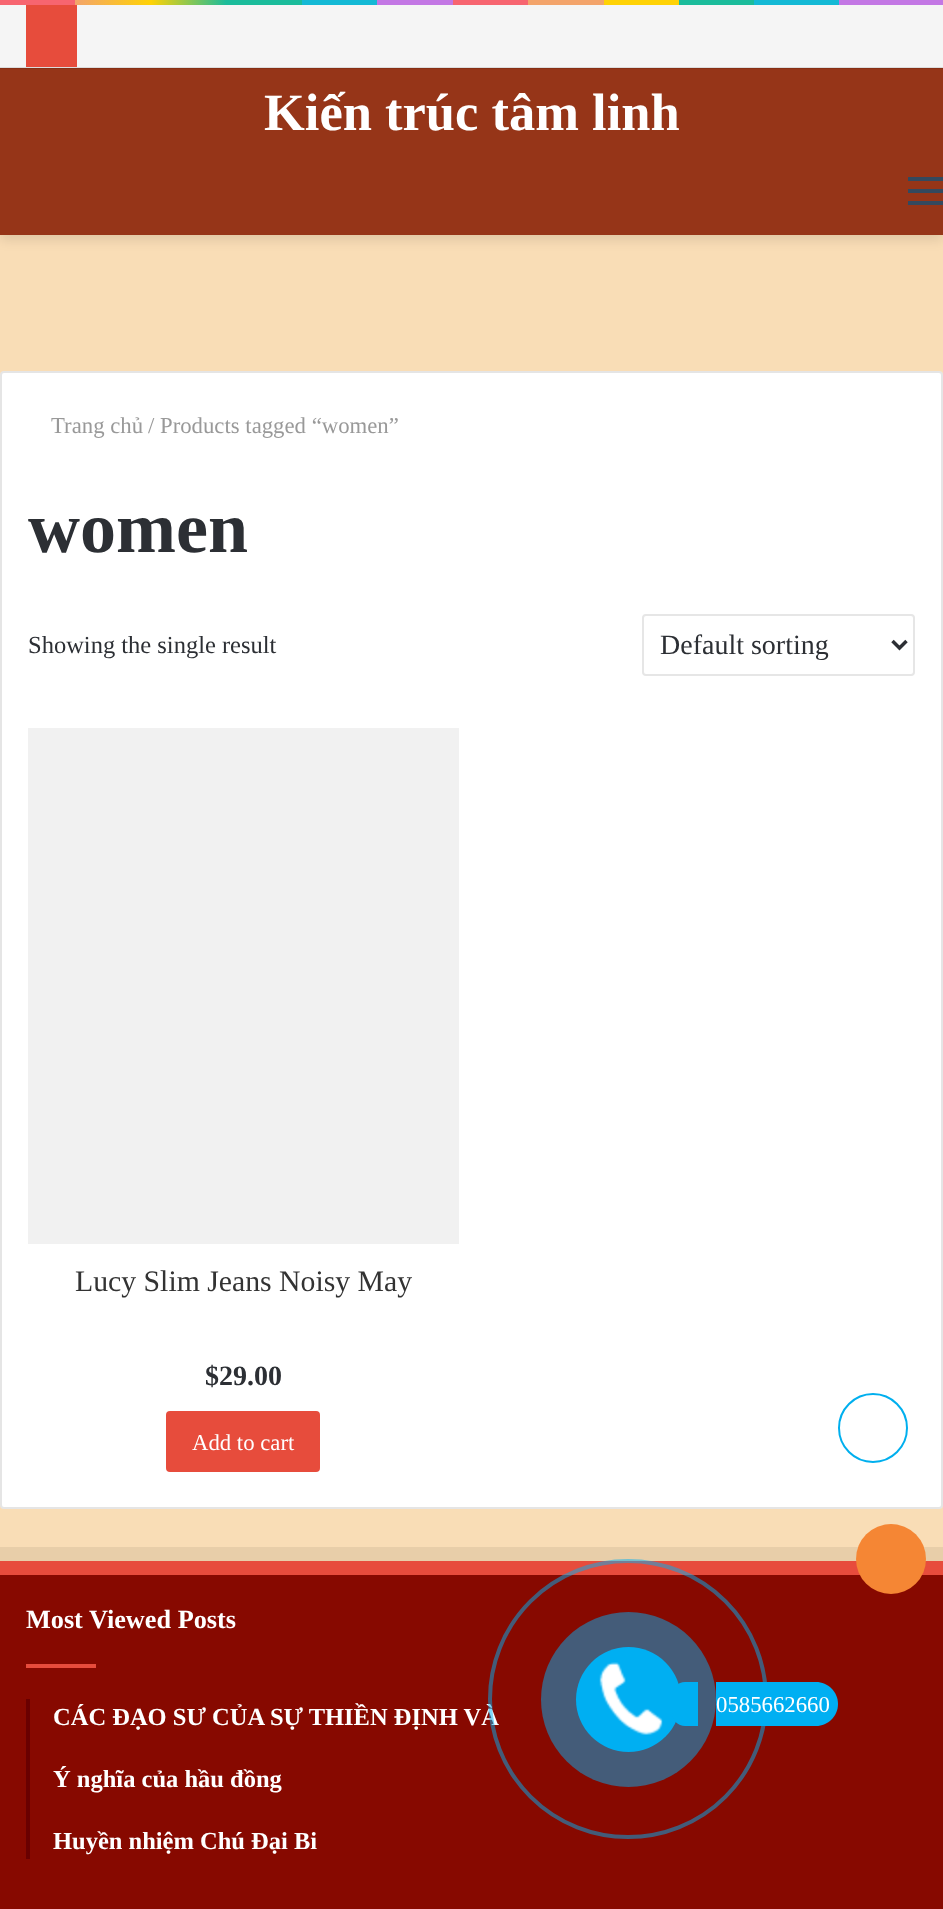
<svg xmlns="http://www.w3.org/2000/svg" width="943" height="1909">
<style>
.a{font:bold 52.5px Liberation Serif;fill:#fff}
.b{font:22.75px Liberation Serif;fill:#999}
.c{font:bold 72px Liberation Serif;fill:#2c2f34}
.d{font:24.5px Liberation Serif;fill:#2c2f34}
.e{font:28px Liberation Serif;fill:#2c2f34}
.f{font:29.75px Liberation Serif;fill:#333}
.g{font:bold 28px Liberation Serif;fill:#2c2f34}
.h{font:22.75px Liberation Serif;fill:#fff}
.i{font:bold 26.25px Liberation Serif;fill:#fff}
.j{font:bold 24.5px Liberation Serif;fill:#fff}
</style>
<defs>
<linearGradient id="g1" gradientUnits="userSpaceOnUse" x1="0" y1="2.6" x2="943" y2="2.6"><stop offset="0" stop-color="#f76570"/><stop offset="0.08" stop-color="#f76570"/><stop offset="0.08" stop-color="#f3a46b"/><stop offset="0.16" stop-color="#ffd205"/><stop offset="0.24" stop-color="#1bbc9b"/><stop offset="0.32" stop-color="#1bbc9b"/><stop offset="0.32" stop-color="#14b9d5"/><stop offset="0.4" stop-color="#14b9d5"/><stop offset="0.4" stop-color="#c377e4"/><stop offset="0.48" stop-color="#c377e4"/><stop offset="0.48" stop-color="#f76570"/><stop offset="0.56" stop-color="#f76570"/><stop offset="0.56" stop-color="#f3a46b"/><stop offset="0.64" stop-color="#f3a46b"/><stop offset="0.64" stop-color="#ffd205"/><stop offset="0.72" stop-color="#ffd205"/><stop offset="0.72" stop-color="#1bbc9b"/><stop offset="0.8" stop-color="#1bbc9b"/><stop offset="0.8" stop-color="#14b9d5"/><stop offset="0.89" stop-color="#14b9d5"/><stop offset="0.89" stop-color="#c377e4"/><stop offset="1" stop-color="#c377e4"/></linearGradient>
</defs>
<rect width="100%" height="100%" fill="#f9ddb6"/>
<path fill="url(#g1)" d="M0 0h943v5H0z"/>
<path fill="#0000001a" filter="blur(6px)" d="M0 74h943v166H0z"/>
<path fill="#f5f5f5" d="M0 5h943v63H0z"/>
<path fill="#963518" d="M0 68h943v167H0z"/>
<path fill="#0000001a" d="M0 67h943v2H0z"/>
<path fill="#e74c3c" d="M26 5h51v62H26z"/>
<path fill="#34495e" d="M908 189h35v4H908z"/>
<path fill="#34495e" d="M908 177h35v4H908z"/>
<path fill="#34495e" d="M908 201h35v4H908z"/>
<rect fill="#fff" y="371" width="943" height="1138" rx="4"/>
<rect fill="none" stroke="#0000001a" stroke-width="2" x="1" y="372" width="941" height="1136" rx="3"/>
<rect fill="none" stroke="#e6e6e6" stroke-width="2" x="643" y="615" width="271" height="60" rx="3"/>
<path fill="none" stroke="#2c2f34" stroke-width="3.5" d="M892.5 641l7 7l7-7"/>
<path fill="#f1f1f1" d="M28 728h431v516H28z"/>
<rect fill="#e74c3c" x="166" y="1411" width="154" height="61" rx="4"/>
<path fill="#870900" d="M0 1575h943v334H0z"/>
<path fill="#e8cea9" d="M0 1547h943v14H0z"/>
<path fill="#e74c3c" d="M0 1561h943v14H0z"/>
<path fill="#e74c3c" d="M26 1664h70v4H26z"/>
<path fill="#690000" d="M26 1699h4v160H26z"/>
<circle fill="none" stroke="#00afee" stroke-width="2" cx="873" cy="1428" r="34"/>
<circle fill="#f58634" cx="891" cy="1559" r="35"/>
<text class="a" x="264" y="130">Kiến trúc tâm linh</text>
<text class="b" x="51" y="433">Trang chủ</text>
<text class="b" x="148" y="433">/</text>
<text class="b" x="160" y="433">Products tagged “women”</text>
<text class="c" x="28" y="552">women</text>
<text class="d" x="28" y="653">Showing the single result</text>
<text class="e" x="660" y="654">Default sorting</text>
<text class="f" x="75" y="1291">Lucy Slim Jeans Noisy May</text>
<text class="g" x="205" y="1385">$29.00</text>
<text class="h" x="192" y="1450">Add to cart</text>
<text class="i" x="26" y="1628">Most Viewed Posts</text>
<text class="j" x="53" y="1725">CÁC ĐẠO SƯ CỦA SỰ THIỀN ĐỊNH VÀ</text>
<text class="j" x="53" y="1787">Ý nghĩa của hầu đồng</text>
<text class="j" x="53" y="1849">Huyền nhiệm Chú Đại Bi</text>
<circle fill="none" stroke="#00aff280" stroke-width="4" cx="628" cy="1699" r="138"/>
<circle fill="#445c79" cx="628.5" cy="1699.5" r="87.5"/>
<circle fill="#00aff2" cx="628.5" cy="1699.5" r="52.5"/>
<image href="1.png" x="599" y="1662" width="64" height="73"/>
<path fill="#00aff2" d="M685 1682h13v44h-13c-7 0-13-6-13-13v-18c0-7 6-13 13-13z"/>
<path fill="#00aff2" d="M716 1682h100c12 0 22 10 22 22c0 12-10 22-22 22h-100z"/>
<text class="h" x="716" y="1712">0585662660</text>
</svg>
